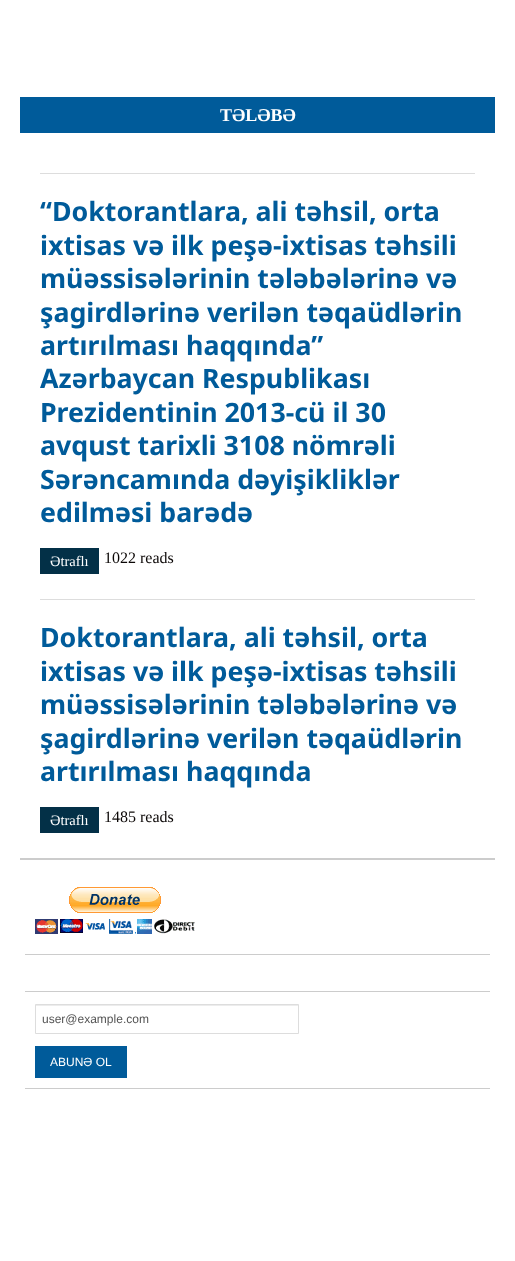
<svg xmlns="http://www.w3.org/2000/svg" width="515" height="1261">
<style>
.a{font:bold 18px Liberation Serif;fill:#fff}
.b{font:bold 26.75px Noto Sans;fill:#005b9a}
.c{font:14.5px Liberation Serif;fill:#fff}
.d{font:16px Liberation Serif;fill:#0b0706}
.e{font:12px Liberation Sans;fill:#555}
.f{font:12px Liberation Sans;fill:#fff}
</style>
<rect width="100%" height="100%" fill="#fff"/>
<path fill="#ccc" d="M20 858h475v2H20z"/>
<path fill="#005b9a" d="M20 97h475v36H20z"/>
<path fill="#ddd" d="M40 173h435v1H40z"/>
<path fill="#033047" d="M40 548h59v26H40z"/>
<path fill="#ddd" d="M40 599h435v1H40z"/>
<path fill="#033047" d="M40 807h59v26H40z"/>
<path fill="#ccc" d="M25 954h465v1H25z"/>
<image href="1.png" x="35" y="887" width="160" height="47"/>
<path fill="#ccc" d="M25 991h465v1H25z"/>
<path fill="#ccc" d="M25 1088h465v1H25z"/>
<path fill="#ececec" d="M36 1005h262v1H36z"/>
<path fill="none" stroke="#ddd" d="M35.5 1004.5h263v29H35.5z"/>
<path fill="#005b9a" d="M35 1046h92v32H35z"/>
<text class="a" x="220" y="121">TƏLƏBƏ</text>
<text class="b" x="40" y="221">“Doktorantlara, ali təhsil, orta</text>
<text class="b" x="40" y="255">ixtisas və ilk peşə-ixtisas təhsili</text>
<text class="b" x="40" y="288">müəssisələrinin tələbələrinə və</text>
<text class="b" x="40" y="322">şagirdlərinə verilən təqaüdlərin</text>
<text class="b" x="40" y="355">artırılması haqqında”</text>
<text class="b" x="40" y="388">Azərbaycan Respublikası</text>
<text class="b" x="40" y="422">Prezidentinin 2013-cü il 30</text>
<text class="b" x="40" y="455">avqust tarixli 3108 nömrəli</text>
<text class="b" x="40" y="489">Sərəncamında dəyişikliklər</text>
<text class="b" x="40" y="522">edilməsi barədə</text>
<text class="c" x="50" y="566">Ətraflı</text>
<text class="d" x="104" y="563">1022 reads</text>
<text class="b" x="40" y="647">Doktorantlara, ali təhsil, orta</text>
<text class="b" x="40" y="681">ixtisas və ilk peşə-ixtisas təhsili</text>
<text class="b" x="40" y="714">müəssisələrinin tələbələrinə və</text>
<text class="b" x="40" y="748">şagirdlərinə verilən təqaüdlərin</text>
<text class="b" x="40" y="781">artırılması haqqında</text>
<text class="c" x="50" y="825">Ətraflı</text>
<text class="d" x="104" y="822">1485 reads</text>
<text class="e" x="42" y="1023">user@example.com</text>
<text class="f" x="50" y="1066">ABUNƏ OL</text>
</svg>
